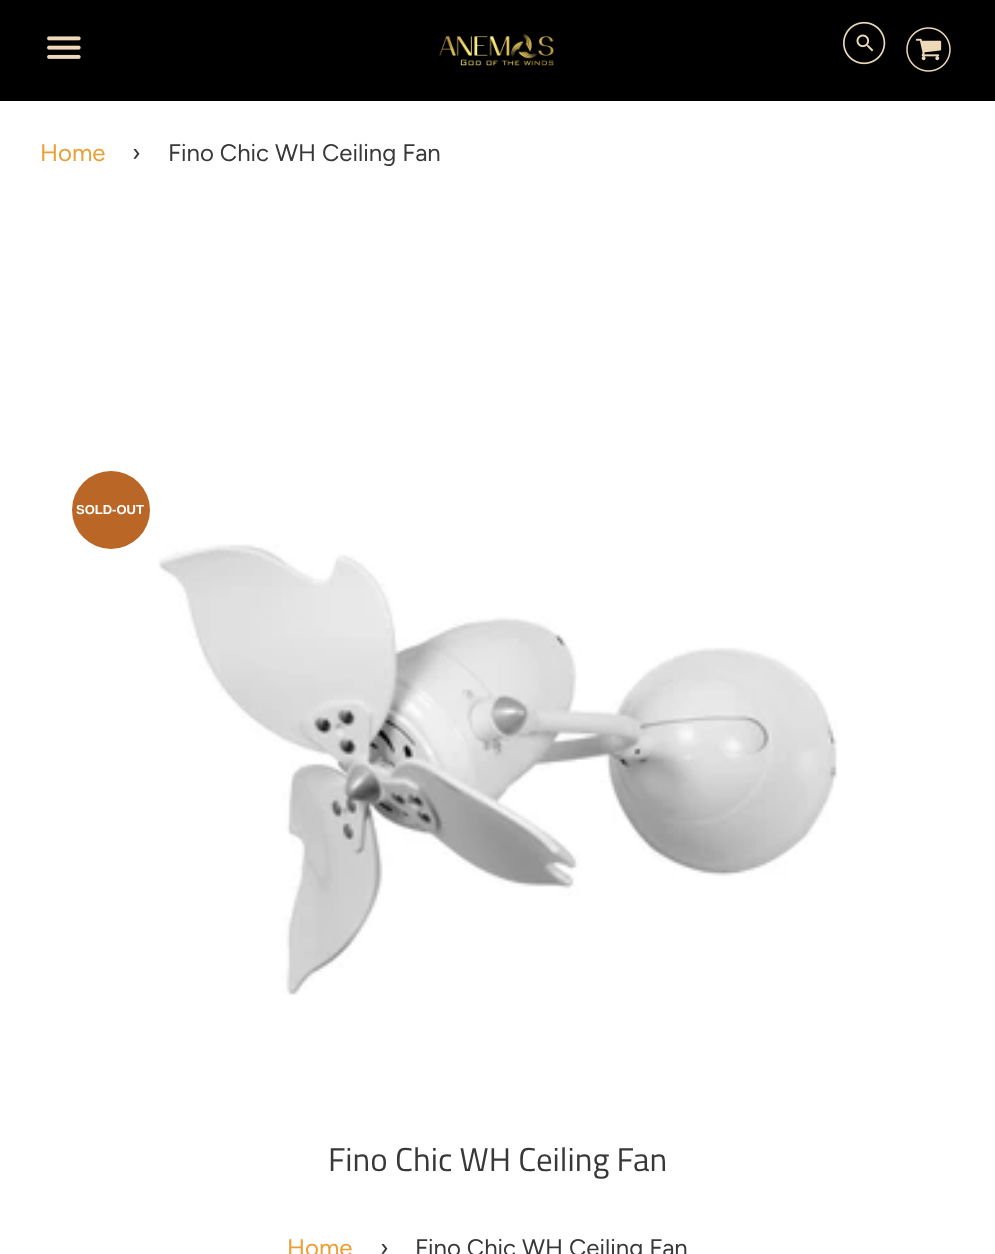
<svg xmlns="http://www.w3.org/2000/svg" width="995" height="1254">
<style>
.a{font:24px Figtree;fill:#ea9e33}
.b{font:24px Figtree;fill:#383838}
.c{font:bold 13px Liberation Sans;fill:#fff}
.d{font:33px Titillium Web;fill:#383838}
</style>
<rect width="100%" height="100%" fill="#fff"/>
<path fill="#000" d="M0 0h995v101H0z"/>
<image href="1.png" x="47" y="36" width="34" height="23"/>
<image href="2.png" x="439" y="33" width="115" height="33"/>
<image href="3.png" x="843" y="21" width="43" height="44"/>
<image href="4.png" x="906" y="27" width="45" height="45"/>
<circle fill="#b96627" cx="111" cy="510" r="39"/>
<image href="5.png" x="158" y="544" width="680" height="451"/>
<text class="a" x="40" y="161">Home</text>
<text class="b" x="132" y="161">›</text>
<text class="b" x="168" y="161">Fino Chic WH Ceiling Fan</text>
<text class="c" x="76" y="514">SOLD-OUT</text>
<text class="d" x="328" y="1171">Fino Chic WH Ceiling Fan</text>
<text class="a" x="287" y="1256">Home</text>
<text class="b" x="380" y="1256">›</text>
<text class="b" x="415" y="1256">Fino Chic WH Ceiling Fan</text>
</svg>
